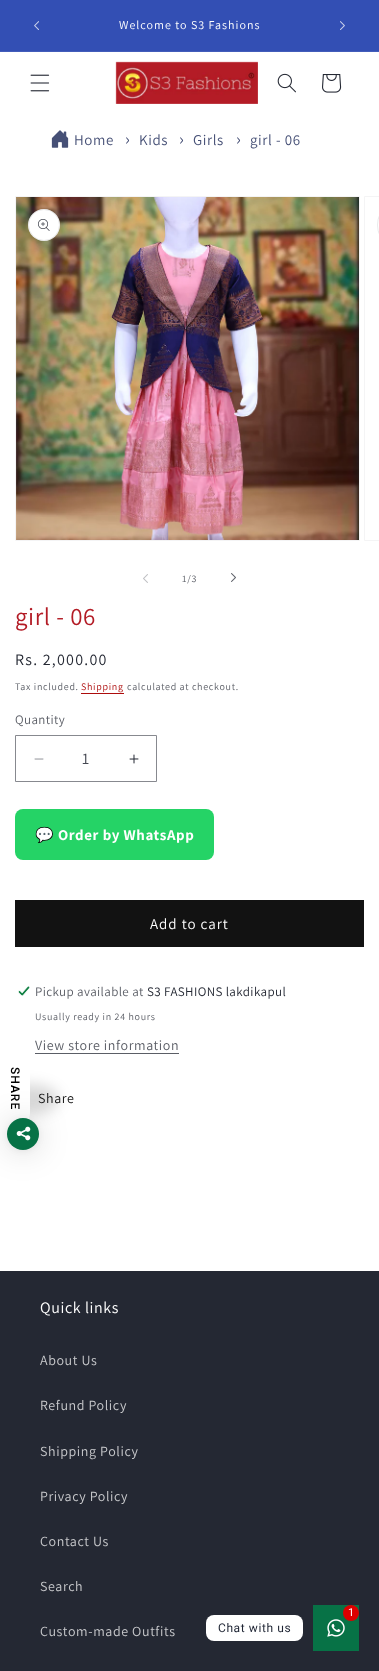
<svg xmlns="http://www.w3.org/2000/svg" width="379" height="1671">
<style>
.a{font:12px Assistant;letter-spacing:1px;fill:#fff}
.b{font:15px Assistant;letter-spacing:0.6px;fill:#465076}
.c{font:18px Assistant;letter-spacing:0.6px;fill:#465076}
.d{font:10px Assistant;letter-spacing:0.7px;fill:#5b5e66}
.e{font:25px Assistant;letter-spacing:0.6px;fill:#b31b25}
.f{font:16px Assistant;letter-spacing:1.25px;fill:#242833}
.g{font:10px Assistant;letter-spacing:0.7px;fill:#ad0c0c}
.h{font:13px Assistant;letter-spacing:0.4px;fill:#5b5e66}
.i{font:16px Assistant;fill:#454852}
.j{font:bold 15px Noto Color Emoji;letter-spacing:0.6px;fill:#fff}
.k{font:bold 15px Assistant;letter-spacing:0.6px;fill:#fff}
.l{font:15px Assistant;letter-spacing:1px;fill:#fff}
.m{font:13px Assistant;letter-spacing:0.4px;fill:#242833}
.n{font:14px Assistant;letter-spacing:0.6px;fill:#5b5e66}
.o{font:14px Assistant;letter-spacing:0.6px;fill:#121212}
.p{font:500 12px Roboto;letter-spacing:1px;fill:#000}
.q{font:11px Roboto;letter-spacing:0.6px;fill:#fff}
.r{font:12px Roboto;letter-spacing:0.6px;fill:#1e2433}
.s{font:16px Assistant;letter-spacing:0.6px;fill:#fff}
.t{font:14px Assistant;letter-spacing:0.6px;fill:#c8c9cc}
</style>
<rect width="100%" height="100%" fill="#fff"/>
<path fill="#334fb4" d="M0 0h379v51H0z"/>
<path fill="#435dba" d="M0 51h379v1H0z"/>
<image href="1.png" x="34" y="21" width="5" height="9"/>
<image href="2.png" x="340" y="21" width="5" height="9"/>
<image href="3.png" x="30" y="74" width="20" height="18"/>
<image href="4.png" x="115" y="61" width="143" height="43"/>
<image href="5.png" x="277" y="73" width="19" height="20"/>
<image href="6.png" x="322" y="74" width="20" height="19"/>
<image href="7.png" x="51" y="130" width="18" height="18"/>
<path fill="none" stroke="#f4f4f5" d="M15.5 196.5h344v344H15.5z"/>
<image href="8.png" x="16" y="197" width="343" height="343"/>
<circle fill="#fff" cx="44" cy="225" r="16"/>
<circle fill="none" stroke="#2428331a" cx="44" cy="225" r="15.5"/>
<image href="9.png" x="38" y="219" width="12" height="12"/>
<path fill="none" stroke="#f4f4f5" d="M364.5 196.5h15v344H364.5z"/>
<rect fill="none" stroke="#e9eaeb" x="377.5" y="209.5" width="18" height="31" rx="15.5"/>
<image href="10.png" x="143" y="574" width="5" height="9"/>
<image href="11.png" x="231" y="573" width="5" height="9"/>
<path fill="#ad0c0c" d="M81 693h43v1H81z"/>
<image href="12.png" x="34" y="758" width="10" height="2"/>
<image href="13.png" x="129" y="754" width="10" height="10"/>
<path fill="none" stroke="#87898f" d="M15.5 735.5h141v46H15.5z"/>
<rect fill="#25d366" x="15" y="809" width="199" height="51" rx="8"/>
<path fill="#121212" d="M15 900h349v47H15z"/>
<image href="14.png" x="18" y="986" width="12" height="10"/>
<path fill="#5b5e66" d="M35 1053h144v1H35z"/>
<rect fill="#00000026" filter="blur(7px)" x="-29" y="1084" width="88" height="30" rx="28"/>
<path fill="#fff" d="M0 1140v-88h26c2 0 4 1 4 4v56c0 15-13 28-28 28z"/>
<rect fill="#00000029" filter="blur(16px)" x="7" y="1120" width="32" height="32" rx="16"/>
<rect fill="#0000000f" filter="blur(3px)" x="7" y="1119" width="32" height="32" rx="16"/>
<circle fill="#077246" cx="23" cy="1134" r="16"/>
<image href="15.png" x="16" y="1126" width="15" height="15"/>
<path fill="#242833" d="M0 1271h379v400H0z"/>
<path fill="#077246" d="M313 1605h46v46H313z"/>
<image href="16.png" x="327" y="1619" width="18" height="18"/>
<circle fill="#d00" cx="351" cy="1613" r="8"/>
<rect fill="#fff" x="206" y="1615" width="97" height="26" rx="8"/>
<text class="a" x="119" y="29">Welcome to S3 Fashions</text>
<text class="b" x="74" y="145">Home</text>
<text class="c" x="125" y="145">›</text>
<text class="b" x="139" y="145">Kids</text>
<text class="c" x="179" y="145">›</text>
<text class="b" x="193" y="145">Girls</text>
<text class="c" x="236" y="145">›</text>
<text class="b" x="250" y="145">girl - 06</text>
<text class="d" x="182" y="582">1/3</text>
<text class="e" x="15" y="625">girl - 06</text>
<text class="f" x="15" y="665">Rs. 2,000.00</text>
<text class="d" x="15" y="690">Tax included.</text>
<text class="g" x="81" y="690">Shipping</text>
<text class="d" x="127" y="690">calculated at checkout.</text>
<text class="h" x="15" y="724">Quantity</text>
<text class="i" x="82" y="764">1</text>
<text class="j" x="35" y="840">💬</text>
<text class="k" x="58" y="840">Order by WhatsApp</text>
<text class="l" x="150" y="929">Add to cart</text>
<text class="h" x="35" y="996">Pickup available at</text>
<text class="m" x="147" y="996">S3 FASHIONS lakdikapul</text>
<text class="d" x="35" y="1020">Usually ready in 24 hours</text>
<text class="n" x="35" y="1050">View store information</text>
<text class="o" x="38" y="1103">Share</text>
<text class="p" x="11" y="1067" transform="rotate(90 11 1067)">SHARE</text>
<text class="q" x="348" y="1616">1</text>
<text class="r" x="218" y="1632">Chat with us</text>
<text class="s" x="40" y="1313">Quick links</text>
<text class="t" x="40" y="1365">About Us</text>
<text class="t" x="40" y="1410">Refund Policy</text>
<text class="t" x="40" y="1456">Shipping Policy</text>
<text class="t" x="40" y="1501">Privacy Policy</text>
<text class="t" x="40" y="1546">Contact Us</text>
<text class="t" x="40" y="1591">Search</text>
<text class="t" x="40" y="1636">Custom-made Outfits</text>
</svg>
